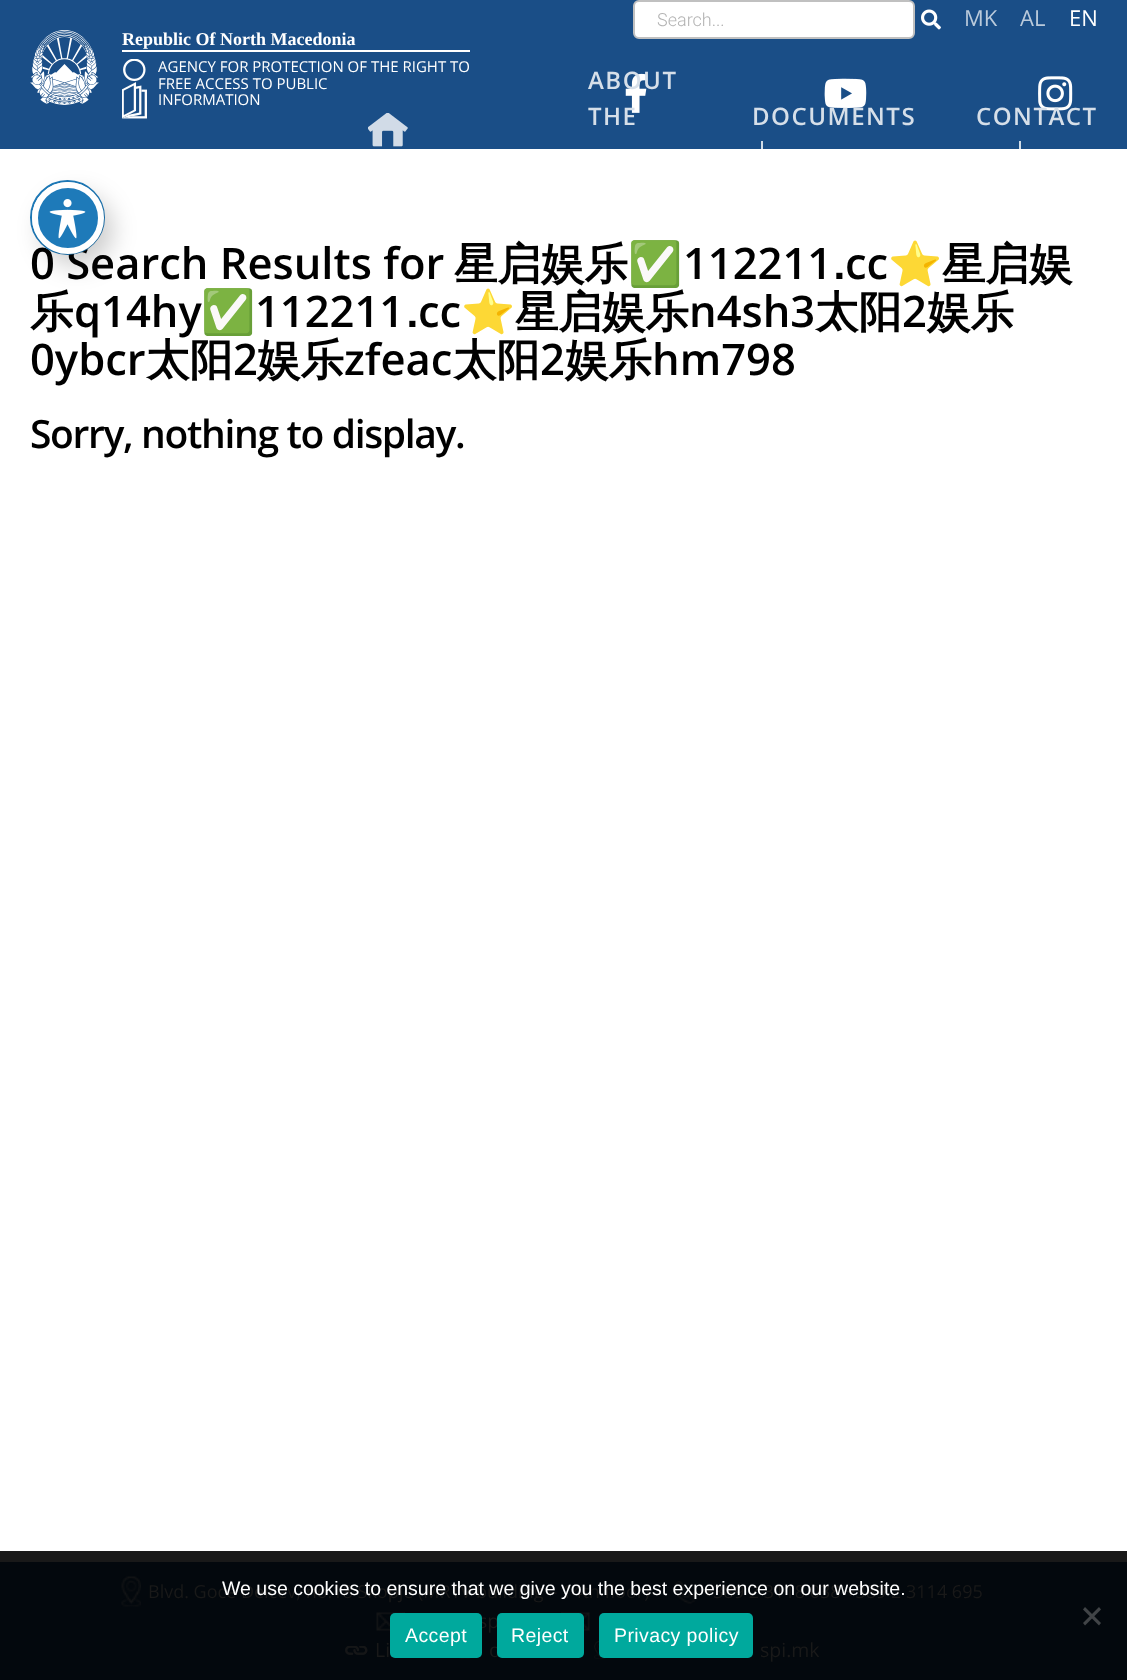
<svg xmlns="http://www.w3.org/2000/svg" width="1127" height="1680">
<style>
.a{font:bold 18px Liberation Serif;fill:#fff}
.b{font:15px Open Sans;fill:#fff}
.c{font:300 18px Roboto;fill:#b3b3b3}
.d{font:22px Open Sans;fill:#bacadb}
.e{font:22px Open Sans;fill:#fff}
.f{font:600 24px Open Sans;letter-spacing:1.5px;fill:#d6dfe9}
.g{font:600 43.5px Open Sans;fill:#000}
.h{font:bold 43.5px WenQuanYi Zen Hei;fill:#000}
.i{font:bold 43.5px Noto Color Emoji;fill:#000}
.j{font:600 39px Open Sans;letter-spacing:-1.35px;fill:#000}
.k{font:19.5px Liberation Sans;letter-spacing:0.4px;fill:#fff}
.l{font:18px Open Sans;fill:#191919}
.m{font:19.5px Liberation Sans;fill:#fff}
.n{font:19.5px Open Sans;fill:#191919}
</style>
<rect width="100%" height="100%" fill="#fff"/>
<path fill="#191919" d="M0 1551h1127v11H0z"/>
<path fill="#1a4e87" d="M0 0h1127v149H0z"/>
<path fill="#d1dce7" d="M1019 141h2v8H1019z"/>
<path fill="#d1dce7" d="M761 141h2v8H761z"/>
<image href="1.png" x="30" y="30" width="69" height="75"/>
<path fill="#fff" d="M122 50h348v2H122z"/>
<image href="2.png" x="122" y="59" width="25" height="60"/>
<rect fill="#fff" stroke="#c0c0c0" stroke-width="2" x="634" y="1" width="280" height="37" rx="5"/>
<image href="3.png" x="921" y="9" width="20" height="21"/>
<image href="4.png" x="368" y="113" width="40" height="34"/>
<image href="5.png" x="625" y="73" width="22" height="40"/>
<image href="6.png" x="824" y="78" width="43" height="30"/>
<image href="7.png" x="1038" y="76" width="35" height="35"/>
<path fill="#03080d" d="M0 1562h1127v118H0z"/>
<path fill="#414447" d="M1099 1607l2 2.5l-16 16l-2-2.5z"/>
<path fill="#414447" d="M1083 1609.5l2-2.5l16 16l-2 2.5z"/>
<image href="15.png" x="594" y="1641" width="12" height="18"/>
<rect fill="#00a99d" x="599" y="1613" width="154" height="45" rx="5"/>
<image href="9.png" x="121" y="1576" width="20" height="31"/>
<image href="10.png" x="673" y="1581" width="23" height="23"/>
<image href="11.png" x="376" y="1612" width="29" height="19"/>
<image href="12.png" x="561" y="1612" width="29" height="19"/>
<image href="13.png" x="345" y="1646" width="23" height="9"/>
<image href="14.png" x="459" y="1658" width="12" height="1"/>
<text class="a" x="122" y="45">Republic Of North Macedonia</text>
<text class="b" x="158" y="72">AGENCY FOR PROTECTION OF THE RIGHT TO</text>
<text class="b" x="158" y="89">FREE ACCESS TO PUBLIC</text>
<text class="b" x="158" y="105">INFORMATION</text>
<text class="c" x="657" y="26">Search...</text>
<text class="d" x="964" y="26">MK</text>
<text class="d" x="1020" y="26">AL</text>
<text class="e" x="1069" y="26">EN</text>
<text class="f" x="588" y="89">ABOUT</text>
<text class="f" x="588" y="125">THE</text>
<text class="f" x="752" y="125">DOCUMENTS</text>
<text class="f" x="976" y="125">CONTACT</text>
<text class="g" x="30" y="279">0 Search Results for</text>
<text class="h" x="454" y="279">星启娱乐</text>
<text class="i" x="628" y="279">✅️</text>
<text class="g" x="683" y="279">112211</text>
<text class="h" x="832" y="279">.</text>
<text class="g" x="845" y="279">cc</text>
<text class="i" x="888" y="279">⭐</text>
<text class="h" x="942" y="279">星启娱</text>
<text class="h" x="30" y="327">乐</text>
<text class="g" x="74" y="327">q14hy</text>
<text class="i" x="201" y="327">✅️</text>
<text class="g" x="255" y="327">112211</text>
<text class="h" x="405" y="327">.</text>
<text class="g" x="418" y="327">cc</text>
<text class="i" x="461" y="327">⭐</text>
<text class="h" x="515" y="327">星启娱乐</text>
<text class="g" x="689" y="327">n4sh3</text>
<text class="h" x="815" y="327">太阳</text>
<text class="g" x="902" y="327">2</text>
<text class="h" x="927" y="327">娱乐</text>
<text class="g" x="30" y="375">0ybcr</text>
<text class="h" x="146" y="375">太阳</text>
<text class="g" x="233" y="375">2</text>
<text class="h" x="257" y="375">娱乐</text>
<text class="g" x="344" y="375">zfeac</text>
<text class="h" x="453" y="375">太阳</text>
<text class="g" x="540" y="375">2</text>
<text class="h" x="565" y="375">娱乐</text>
<text class="g" x="652" y="375">hm798</text>
<text class="j" x="30" y="448">Sorry, nothing to display.</text>
<circle fill="none" stroke="#1e7ab9" stroke-width="2" cx="67.5" cy="217.5" r="36.5"/>
<rect fill="#00000033" filter="blur(12px)" x="41" y="194" width="72" height="72" rx="36"/>
<circle fill="#1e7ab9" stroke="#fff" stroke-width="6" cx="68" cy="218" r="33"/>
<image href="8.png" x="49" y="199" width="37" height="40"/>
<text class="k" x="614" y="1642">Privacy policy</text>
<text class="l" x="148" y="1598">Blvd. Goce Delcev, no.18 Skopje (MRTV building – 14th floor)</text>
<text class="l" x="703" y="1598">+389 2 3118 038 +389 2 3114 695</text>
<text class="m" x="222" y="1595">We use cookies to ensure that we give you the best experience on our website.</text>
<text class="n" x="478" y="1628">sp</text>
<rect fill="#00a99d" x="390" y="1613" width="92" height="45" rx="5"/>
<text class="k" x="405" y="1642">Accept</text>
<text class="n" x="375" y="1657">Li</text>
<text class="n" x="489" y="1657">o</text>
<rect fill="#00a99d" x="497" y="1613" width="87" height="45" rx="5"/>
<text class="k" x="511" y="1642">Reject</text>
<text class="n" x="760" y="1657">spi.mk</text>
</svg>
